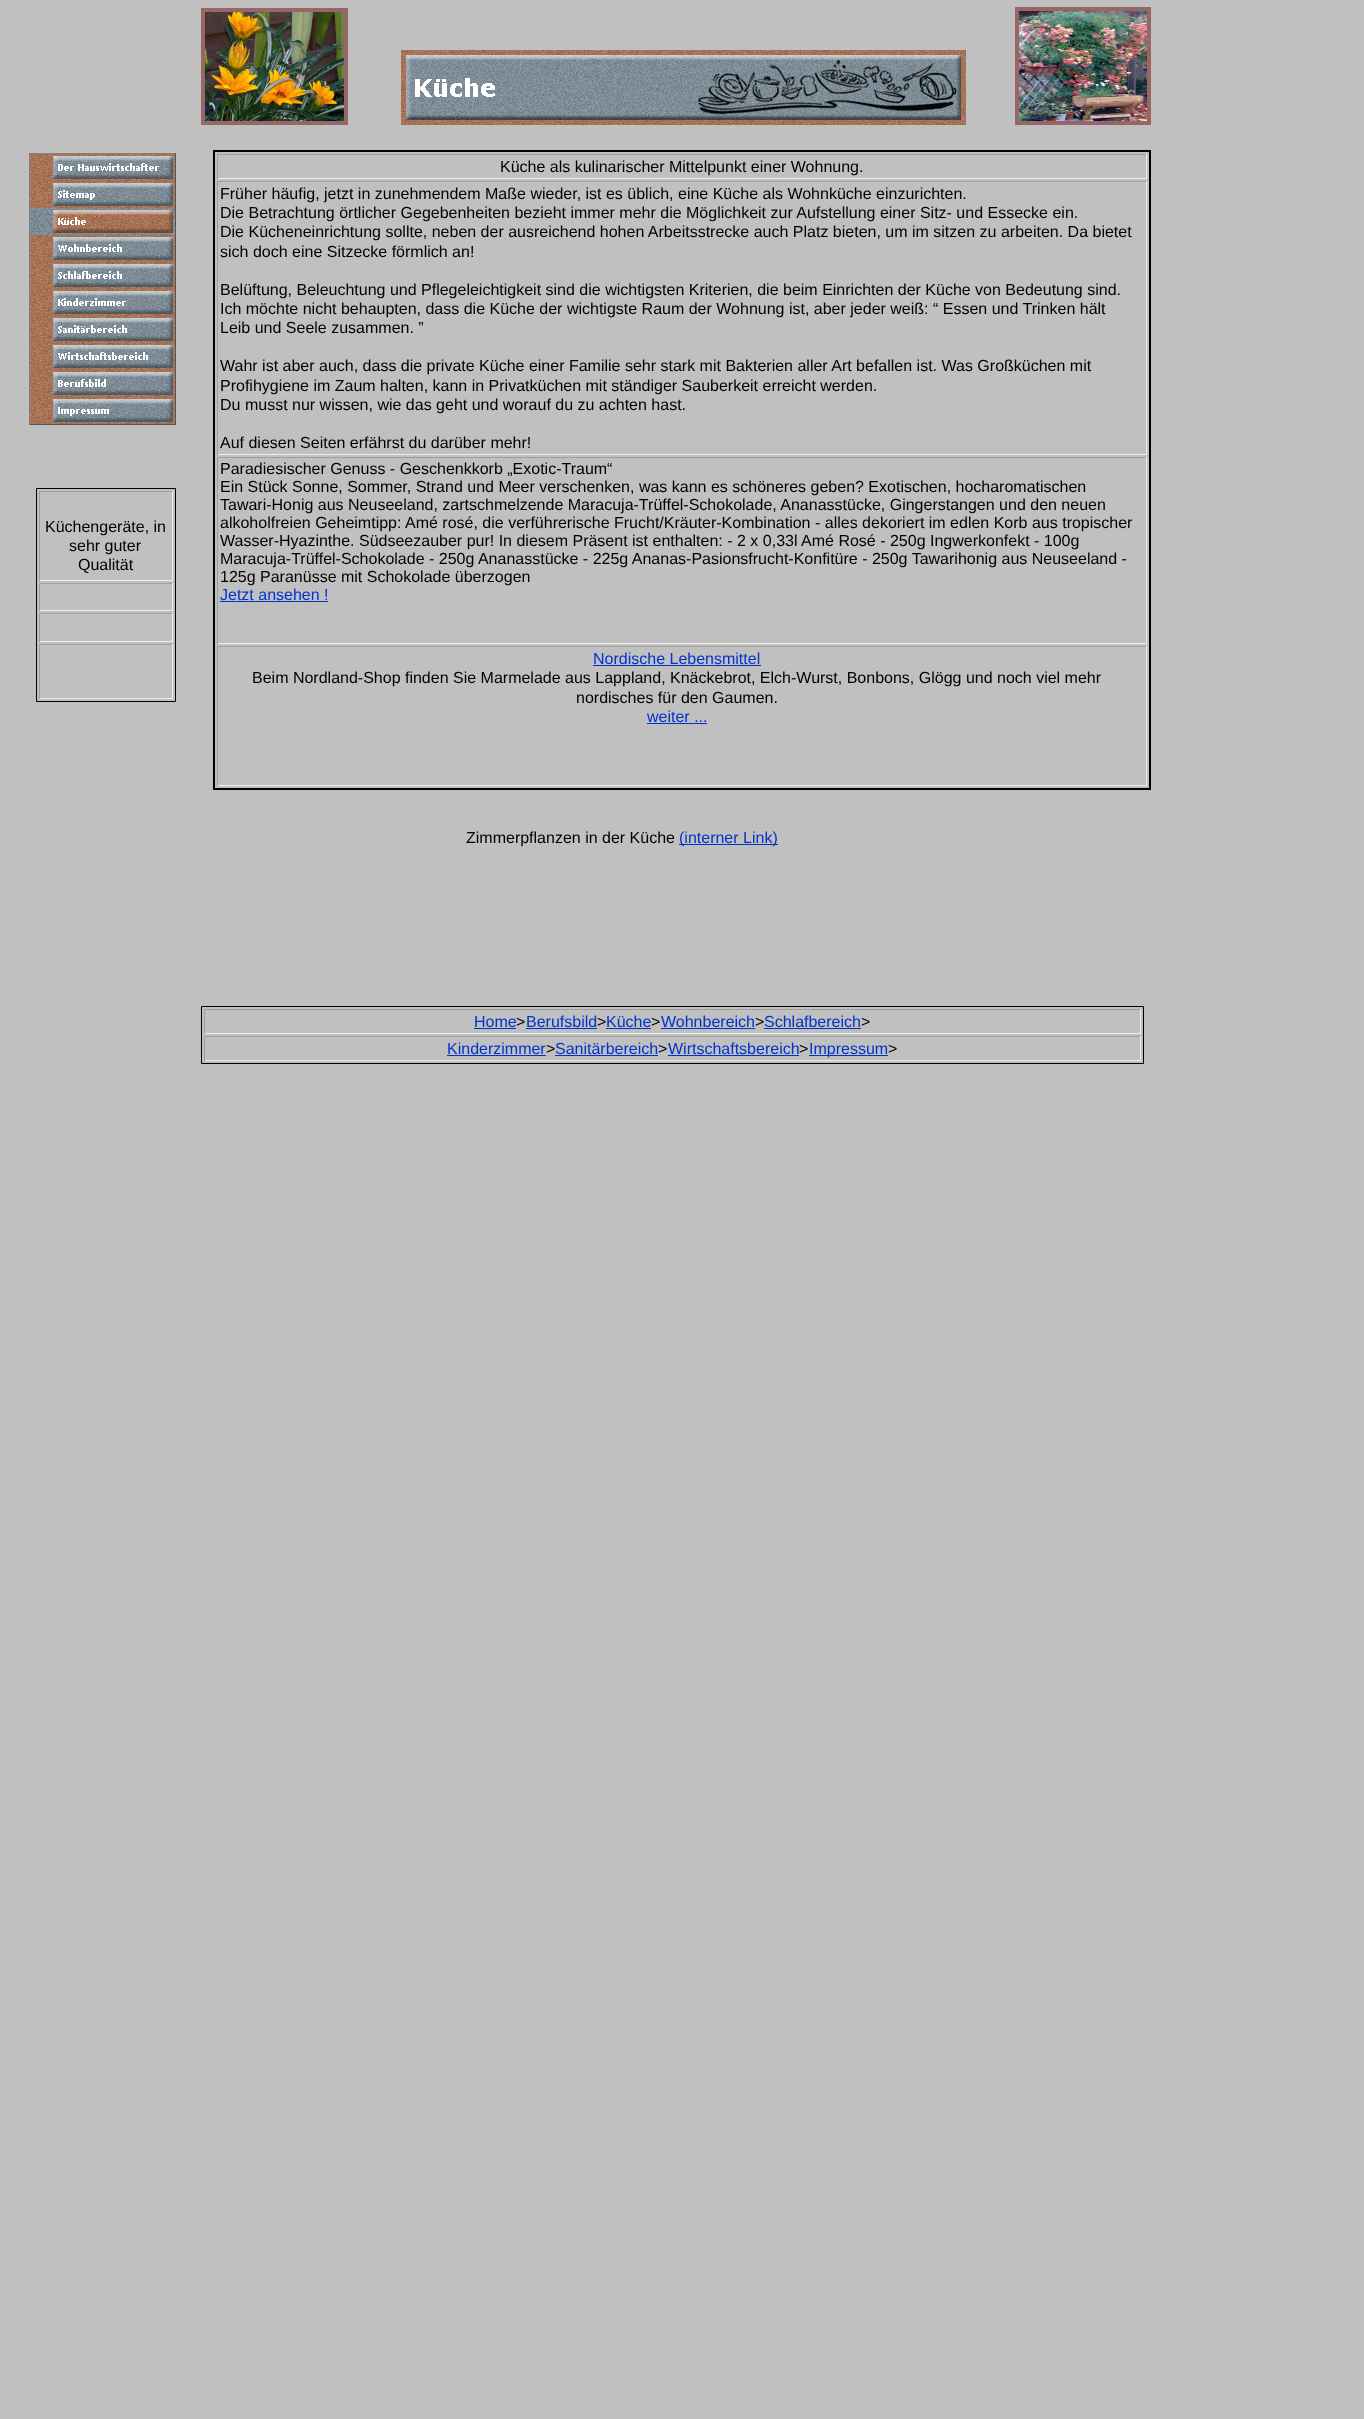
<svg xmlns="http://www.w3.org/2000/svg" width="1364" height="2419">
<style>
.a{font:16px Liberation Sans;fill:#000}
.b{font:16px Liberation Sans;fill:#03c}
</style>
<rect width="100%" height="100%" fill="#c0c0c0"/>
<path fill="#808080" d="M29 153h147v1H29z"/>
<path fill="#555" d="M175 153h1v272H175z"/>
<path fill="#555" d="M29 424h147v1H29z"/>
<path fill="#808080" d="M29 153h1v272H29z"/>
<image href="1.png" x="30" y="154" width="145" height="27"/>
<image href="2.png" x="30" y="181" width="145" height="27"/>
<image href="3.png" x="30" y="208" width="145" height="27"/>
<image href="4.png" x="30" y="235" width="145" height="27"/>
<image href="5.png" x="30" y="262" width="145" height="27"/>
<image href="6.png" x="30" y="289" width="145" height="27"/>
<image href="7.png" x="30" y="316" width="145" height="27"/>
<image href="8.png" x="30" y="343" width="145" height="27"/>
<image href="9.png" x="30" y="370" width="145" height="27"/>
<image href="10.png" x="30" y="397" width="145" height="27"/>
<path fill="none" stroke="#000" d="M36.5 488.5h139v213H36.5z"/>
<path fill="#9f9f9f" d="M39 491h134v1H39z"/>
<path fill="#eee" d="M172 491h1v90H172z"/>
<path fill="#eee" d="M39 580h134v1H39z"/>
<path fill="#9f9f9f" d="M39 491h1v90H39z"/>
<path fill="#9f9f9f" d="M39 583h134v1H39z"/>
<path fill="#eee" d="M172 583h1v28H172z"/>
<path fill="#eee" d="M39 610h134v1H39z"/>
<path fill="#9f9f9f" d="M39 583h1v28H39z"/>
<path fill="#9f9f9f" d="M39 613h134v1H39z"/>
<path fill="#eee" d="M172 613h1v29H172z"/>
<path fill="#eee" d="M39 641h134v1H39z"/>
<path fill="#9f9f9f" d="M39 613h1v29H39z"/>
<path fill="#9f9f9f" d="M39 644h134v1H39z"/>
<path fill="#eee" d="M172 644h1v55H172z"/>
<path fill="#eee" d="M39 698h134v1H39z"/>
<path fill="#9f9f9f" d="M39 644h1v55H39z"/>
<path fill="none" stroke="#966" stroke-width="4" d="M203 10h143v113H203z"/>
<image href="11.png" x="205" y="12" width="139" height="109"/>
<image href="12.png" x="401" y="50" width="565" height="75"/>
<path fill="none" stroke="#966" stroke-width="4" d="M1017 9h132v114H1017z"/>
<image href="13.png" x="1019" y="11" width="128" height="110"/>
<path fill="none" stroke="#000" stroke-width="2" d="M214 151h936v638H214z"/>
<path fill="#9f9f9f" d="M217 154h930v1H217z"/>
<path fill="#eee" d="M1146 154h1v25H1146z"/>
<path fill="#eee" d="M217 178h930v1H217z"/>
<path fill="#9f9f9f" d="M217 154h1v25H217z"/>
<path fill="#9f9f9f" d="M217 181h930v1H217z"/>
<path fill="#eee" d="M1146 181h1v274H1146z"/>
<path fill="#eee" d="M217 454h930v1H217z"/>
<path fill="#9f9f9f" d="M217 181h1v274H217z"/>
<path fill="#9f9f9f" d="M217 457h930v1H217z"/>
<path fill="#eee" d="M1146 457h1v187H1146z"/>
<path fill="#eee" d="M217 643h930v1H217z"/>
<path fill="#9f9f9f" d="M217 457h1v187H217z"/>
<path fill="#03c" d="M220 601h108v1H220z"/>
<path fill="#9f9f9f" d="M217 646h930v1H217z"/>
<path fill="#eee" d="M1146 646h1v140H1146z"/>
<path fill="#eee" d="M217 785h930v1H217z"/>
<path fill="#9f9f9f" d="M217 646h1v140H217z"/>
<path fill="#03c" d="M593 665h168v1H593z"/>
<path fill="#03c" d="M647 723h60v1H647z"/>
<path fill="#03c" d="M679 844h99v1H679z"/>
<path fill="none" stroke="#000" d="M201.5 1006.5h942v57H201.5z"/>
<path fill="#9f9f9f" d="M204 1009h937v1H204z"/>
<path fill="#eee" d="M1140 1009h1v25H1140z"/>
<path fill="#eee" d="M204 1033h937v1H204z"/>
<path fill="#9f9f9f" d="M204 1009h1v25H204z"/>
<path fill="#03c" d="M474 1028h42v1H474z"/>
<path fill="#03c" d="M526 1028h71v1H526z"/>
<path fill="#03c" d="M606 1028h45v1H606z"/>
<path fill="#03c" d="M661 1028h94v1H661z"/>
<path fill="#03c" d="M764 1028h97v1H764z"/>
<path fill="#9f9f9f" d="M204 1036h937v1H204z"/>
<path fill="#eee" d="M1140 1036h1v25H1140z"/>
<path fill="#eee" d="M204 1060h937v1H204z"/>
<path fill="#9f9f9f" d="M204 1036h1v25H204z"/>
<path fill="#03c" d="M447 1055h99v1H447z"/>
<path fill="#03c" d="M555 1055h103v1H555z"/>
<path fill="#03c" d="M668 1055h131v1H668z"/>
<path fill="#03c" d="M809 1055h79v1H809z"/>
<text class="a" x="45" y="532">Küchengeräte, in</text>
<text class="a" x="69" y="551">sehr guter</text>
<text class="a" x="78" y="570">Qualität</text>
<text class="a" x="500" y="172">Küche als kulinarischer Mittelpunkt einer Wohnung.</text>
<text class="a" x="220" y="199">Früher häufig, jetzt in zunehmendem Maße wieder, ist es üblich, eine Küche als Wohnküche einzurichten.</text>
<text class="a" x="220" y="218">Die Betrachtung örtlicher Gegebenheiten bezieht immer mehr die Möglichkeit zur Aufstellung einer Sitz- und Essecke ein.</text>
<text class="a" x="220" y="237">Die Kücheneinrichtung sollte, neben der ausreichend hohen Arbeitsstrecke auch Platz bieten, um im sitzen zu arbeiten. Da bietet</text>
<text class="a" x="220" y="257">sich doch eine Sitzecke förmlich an!</text>
<text class="a" x="220" y="295">Belüftung, Beleuchtung und Pflegeleichtigkeit sind die wichtigsten Kriterien, die beim Einrichten der Küche von Bedeutung sind.</text>
<text class="a" x="220" y="314">Ich möchte nicht behaupten, dass die Küche der wichtigste Raum der Wohnung ist, aber jeder weiß: “ Essen und Trinken hält</text>
<text class="a" x="220" y="333">Leib und Seele zusammen. ”</text>
<text class="a" x="220" y="371">Wahr ist aber auch, dass die private Küche einer Familie sehr stark mit Bakterien aller Art befallen ist. Was Großküchen mit</text>
<text class="a" x="220" y="391">Profihygiene im Zaum halten, kann in Privatküchen mit ständiger Sauberkeit erreicht werden.</text>
<text class="a" x="220" y="410">Du musst nur wissen, wie das geht und worauf du zu achten hast.</text>
<text class="a" x="220" y="448">Auf diesen Seiten erfährst du darüber mehr!</text>
<text class="a" x="220" y="474">Paradiesischer Genuss - Geschenkkorb „Exotic-Traum“</text>
<text class="a" x="220" y="492">Ein Stück Sonne, Sommer, Strand und Meer verschenken, was kann es schöneres geben? Exotischen, hocharomatischen</text>
<text class="a" x="220" y="510">Tawari-Honig aus Neuseeland, zartschmelzende Maracuja-Trüffel-Schokolade, Ananasstücke, Gingerstangen und den neuen</text>
<text class="a" x="220" y="528">alkoholfreien Geheimtipp: Amé rosé, die verführerische Frucht/Kräuter-Kombination - alles dekoriert im edlen Korb aus tropischer</text>
<text class="a" x="220" y="546">Wasser-Hyazinthe. Südseezauber pur! In diesem Präsent ist enthalten: - 2 x 0,33l Amé Rosé - 250g Ingwerkonfekt - 100g</text>
<text class="a" x="220" y="564">Maracuja-Trüffel-Schokolade - 250g Ananasstücke - 225g Ananas-Pasionsfrucht-Konfitüre - 250g Tawarihonig aus Neuseeland -</text>
<text class="a" x="220" y="582">125g Paranüsse mit Schokolade überzogen</text>
<text class="b" x="220" y="600">Jetzt ansehen !</text>
<text class="b" x="593" y="664">Nordische Lebensmittel</text>
<text class="a" x="252" y="683">Beim Nordland-Shop finden Sie Marmelade aus Lappland, Knäckebrot, Elch-Wurst, Bonbons, Glögg und noch viel mehr</text>
<text class="a" x="576" y="703">nordisches für den Gaumen.</text>
<text class="b" x="647" y="722">weiter ...</text>
<text class="a" x="466" y="843">Zimmerpflanzen in der Küche</text>
<text class="b" x="679" y="843">(interner Link)</text>
<text class="b" x="474" y="1027">Home</text>
<text class="a" x="516" y="1027">&gt;</text>
<text class="b" x="526" y="1027">Berufsbild</text>
<text class="a" x="597" y="1027">&gt;</text>
<text class="b" x="606" y="1027">Küche</text>
<text class="a" x="651" y="1027">&gt;</text>
<text class="b" x="661" y="1027">Wohnbereich</text>
<text class="a" x="755" y="1027">&gt;</text>
<text class="b" x="764" y="1027">Schlafbereich</text>
<text class="a" x="861" y="1027">&gt;</text>
<text class="b" x="447" y="1054">Kinderzimmer</text>
<text class="a" x="546" y="1054">&gt;</text>
<text class="b" x="555" y="1054">Sanitärbereich</text>
<text class="a" x="658" y="1054">&gt;</text>
<text class="b" x="668" y="1054">Wirtschaftsbereich</text>
<text class="a" x="799" y="1054">&gt;</text>
<text class="b" x="809" y="1054">Impressum</text>
<text class="a" x="888" y="1054">&gt;</text>
</svg>
